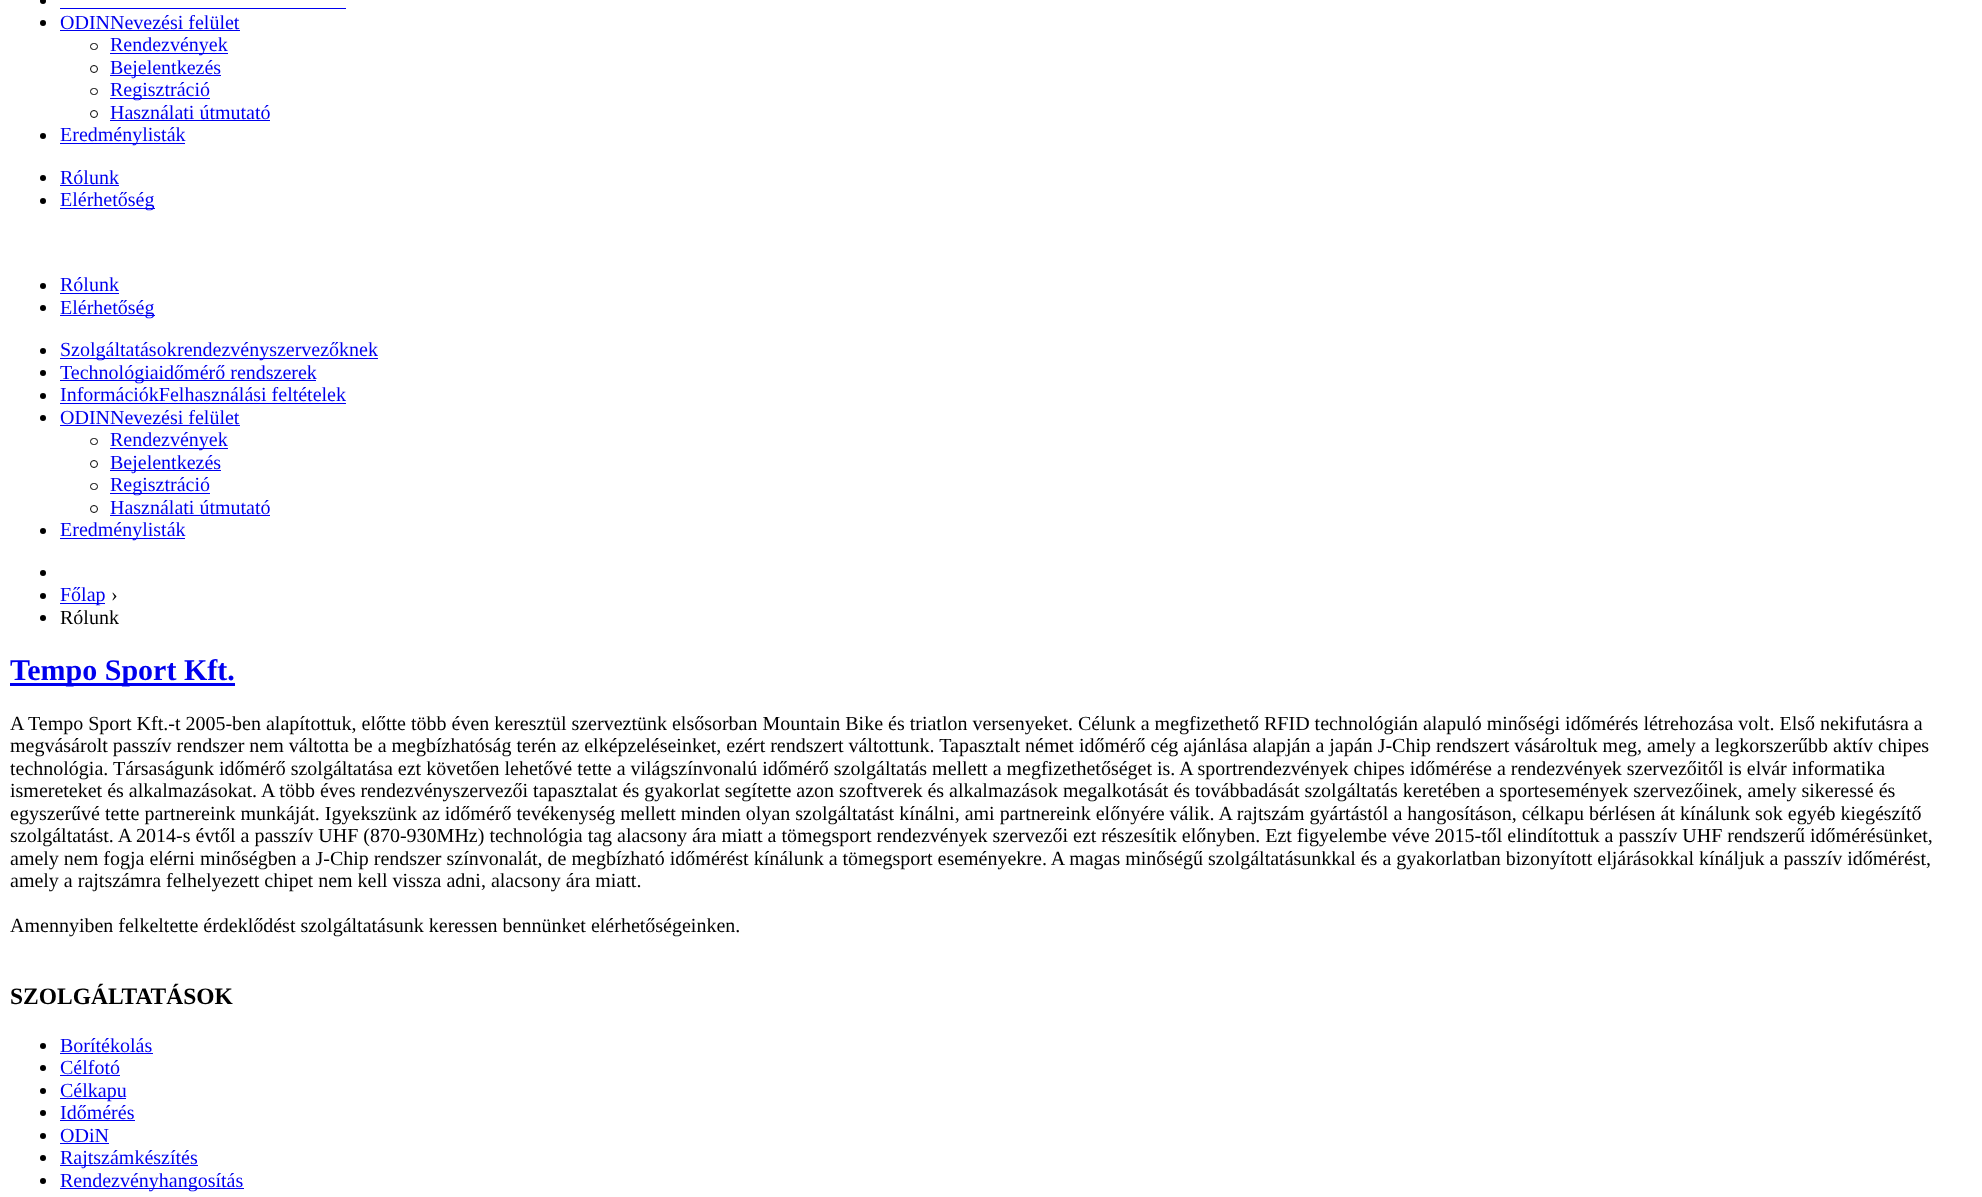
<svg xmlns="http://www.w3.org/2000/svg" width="1982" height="1197">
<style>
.a{font:20px Liberation Serif;fill:#00e}
.b{font:20px Liberation Serif;fill:#000}
.c{font:bold 30px Liberation Serif;fill:#00e}
.d{font:bold 23.5px Liberation Serif;fill:#000}
</style>
<rect width="100%" height="100%" fill="#fff"/>
<circle fill="#000" cx="43" cy="1" r="3"/>
<path fill="#00e" d="M60 8h286v1H60z"/>
<circle fill="#000" cx="43" cy="23" r="3"/>
<path fill="#00e" d="M60 30h180v1H60z"/>
<rect fill="none" stroke="#000" x="90.5" y="43.5" width="7" height="6" rx="3"/>
<path fill="#00e" d="M110 53h118v1H110z"/>
<circle fill="none" stroke="#000" cx="94" cy="69" r="3.5"/>
<path fill="#00e" d="M110 75h111v1H110z"/>
<rect fill="none" stroke="#000" x="90.5" y="88.5" width="7" height="6" rx="3"/>
<path fill="#00e" d="M110 98h100v1H110z"/>
<circle fill="none" stroke="#000" cx="94" cy="114" r="3.5"/>
<path fill="#00e" d="M110 120h160v1H110z"/>
<circle fill="#000" cx="43" cy="136" r="3"/>
<path fill="#00e" d="M60 143h125v1H60z"/>
<circle fill="#000" cx="43" cy="178" r="3"/>
<path fill="#00e" d="M60 185h59v1H60z"/>
<circle fill="#000" cx="43" cy="201" r="3"/>
<path fill="#00e" d="M60 208h95v1H60z"/>
<circle fill="#000" cx="43" cy="286" r="3"/>
<path fill="#00e" d="M60 293h59v1H60z"/>
<circle fill="#000" cx="43" cy="308" r="3"/>
<path fill="#00e" d="M60 315h95v1H60z"/>
<circle fill="#000" cx="43" cy="351" r="3"/>
<path fill="#00e" d="M60 358h116v1H60z"/>
<path fill="#00e" d="M176 358h202v1H176z"/>
<circle fill="#000" cx="43" cy="373" r="3"/>
<path fill="#00e" d="M60 380h256v1H60z"/>
<circle fill="#000" cx="43" cy="396" r="3"/>
<path fill="#00e" d="M60 403h286v1H60z"/>
<circle fill="#000" cx="43" cy="418" r="3"/>
<path fill="#00e" d="M60 425h180v1H60z"/>
<rect fill="none" stroke="#000" x="90.5" y="438.5" width="7" height="6" rx="3"/>
<path fill="#00e" d="M110 448h118v1H110z"/>
<circle fill="none" stroke="#000" cx="94" cy="464" r="3.5"/>
<path fill="#00e" d="M110 470h111v1H110z"/>
<rect fill="none" stroke="#000" x="90.5" y="483.5" width="7" height="6" rx="3"/>
<path fill="#00e" d="M110 493h100v1H110z"/>
<circle fill="none" stroke="#000" cx="94" cy="509" r="3.5"/>
<path fill="#00e" d="M110 515h160v1H110z"/>
<circle fill="#000" cx="43" cy="531" r="3"/>
<path fill="#00e" d="M60 538h125v1H60z"/>
<circle fill="#000" cx="43" cy="573" r="3"/>
<circle fill="#000" cx="43" cy="596" r="3"/>
<path fill="#00e" d="M60 603h45v1H60z"/>
<circle fill="#000" cx="43" cy="618" r="3"/>
<path fill="#00e" d="M10 683h225v3H10z"/>
<circle fill="#000" cx="43" cy="1046" r="3"/>
<path fill="#00e" d="M60 1053h93v1H60z"/>
<circle fill="#000" cx="43" cy="1068" r="3"/>
<path fill="#00e" d="M60 1075h60v1H60z"/>
<circle fill="#000" cx="43" cy="1091" r="3"/>
<path fill="#00e" d="M60 1098h66v1H60z"/>
<circle fill="#000" cx="43" cy="1113" r="3"/>
<path fill="#00e" d="M60 1120h75v1H60z"/>
<circle fill="#000" cx="43" cy="1136" r="3"/>
<path fill="#00e" d="M60 1143h49v1H60z"/>
<circle fill="#000" cx="43" cy="1158" r="3"/>
<path fill="#00e" d="M60 1165h138v1H60z"/>
<circle fill="#000" cx="43" cy="1181" r="3"/>
<path fill="#00e" d="M60 1188h184v1H60z"/>
<text class="a" x="60" y="29">ODINNevezési felület</text>
<text class="a" x="110" y="51">Rendezvények</text>
<text class="a" x="110" y="74">Bejelentkezés</text>
<text class="a" x="110" y="96">Regisztráció</text>
<text class="a" x="110" y="119">Használati útmutató</text>
<text class="a" x="60" y="141">Eredménylisták</text>
<text class="a" x="60" y="184">Rólunk</text>
<text class="a" x="60" y="206">Elérhetőség</text>
<text class="a" x="60" y="291">Rólunk</text>
<text class="a" x="60" y="314">Elérhetőség</text>
<text class="a" x="60" y="356">Szolgáltatások</text>
<text class="a" x="177" y="356">rendezvényszervezőknek</text>
<text class="a" x="60" y="379">Technológiaidőmérő rendszerek</text>
<text class="a" x="60" y="401">InformációkFelhasználási feltételek</text>
<text class="a" x="60" y="424">ODINNevezési felület</text>
<text class="a" x="110" y="446">Rendezvények</text>
<text class="a" x="110" y="469">Bejelentkezés</text>
<text class="a" x="110" y="491">Regisztráció</text>
<text class="a" x="110" y="514">Használati útmutató</text>
<text class="a" x="60" y="536">Eredménylisták</text>
<text class="a" x="60" y="601">Főlap</text>
<text class="b" x="111" y="601">›</text>
<text class="b" x="60" y="624">Rólunk</text>
<text class="c" x="10" y="680">Tempo Sport Kft.</text>
<text class="b" x="10" y="730">A Tempo Sport Kft.-t 2005-ben alapítottuk, előtte több éven keresztül szerveztünk elsősorban Mountain Bike és triatlon versenyeket. Célunk a megfizethető RFID technológián alapuló minőségi időmérés létrehozása volt. Első nekifutásra a</text>
<text class="b" x="10" y="752">megvásárolt passzív rendszer nem váltotta be a megbízhatóság terén az elképzeléseinket, ezért rendszert váltottunk. Tapasztalt német időmérő cég ajánlása alapján a japán J-Chip rendszert vásároltuk meg, amely a legkorszerűbb aktív chipes</text>
<text class="b" x="10" y="775">technológia. Társaságunk időmérő szolgáltatása ezt követően lehetővé tette a világszínvonalú időmérő szolgáltatás mellett a megfizethetőséget is. A sportrendezvények chipes időmérése a rendezvények szervezőitől is elvár informatika</text>
<text class="b" x="10" y="797">ismereteket és alkalmazásokat. A több éves rendezvényszervezői tapasztalat és gyakorlat segítette azon szoftverek és alkalmazások megalkotását és továbbadását szolgáltatás keretében a sportesemények szervezőinek, amely sikeressé és</text>
<text class="b" x="10" y="820">egyszerűvé tette partnereink munkáját. Igyekszünk az időmérő tevékenység mellett minden olyan szolgáltatást kínálni, ami partnereink előnyére válik. A rajtszám gyártástól a hangosításon, célkapu bérlésen át kínálunk sok egyéb kiegészítő</text>
<text class="b" x="10" y="842">szolgáltatást. A 2014-s évtől a passzív UHF (870-930MHz) technológia tag alacsony ára miatt a tömegsport rendezvények szervezői ezt részesítik előnyben. Ezt figyelembe véve 2015-től elindítottuk a passzív UHF rendszerű időmérésünket,</text>
<text class="b" x="10" y="865">amely nem fogja elérni minőségben a J-Chip rendszer színvonalát, de megbízható időmérést kínálunk a tömegsport eseményekre. A magas minőségű szolgáltatásunkkal és a gyakorlatban bizonyított eljárásokkal kínáljuk a passzív időmérést,</text>
<text class="b" x="10" y="887">amely a rajtszámra felhelyezett chipet nem kell vissza adni, alacsony ára miatt.</text>
<text class="b" x="10" y="932">Amennyiben felkeltette érdeklődést szolgáltatásunk keressen bennünket elérhetőségeinken.</text>
<text class="d" x="10" y="1004">SZOLGÁLTATÁSOK</text>
<text class="a" x="60" y="1052">Borítékolás</text>
<text class="a" x="60" y="1074">Célfotó</text>
<text class="a" x="60" y="1097">Célkapu</text>
<text class="a" x="60" y="1119">Időmérés</text>
<text class="a" x="60" y="1142">ODiN</text>
<text class="a" x="60" y="1164">Rajtszámkészítés</text>
<text class="a" x="60" y="1187">Rendezvényhangosítás</text>
</svg>
